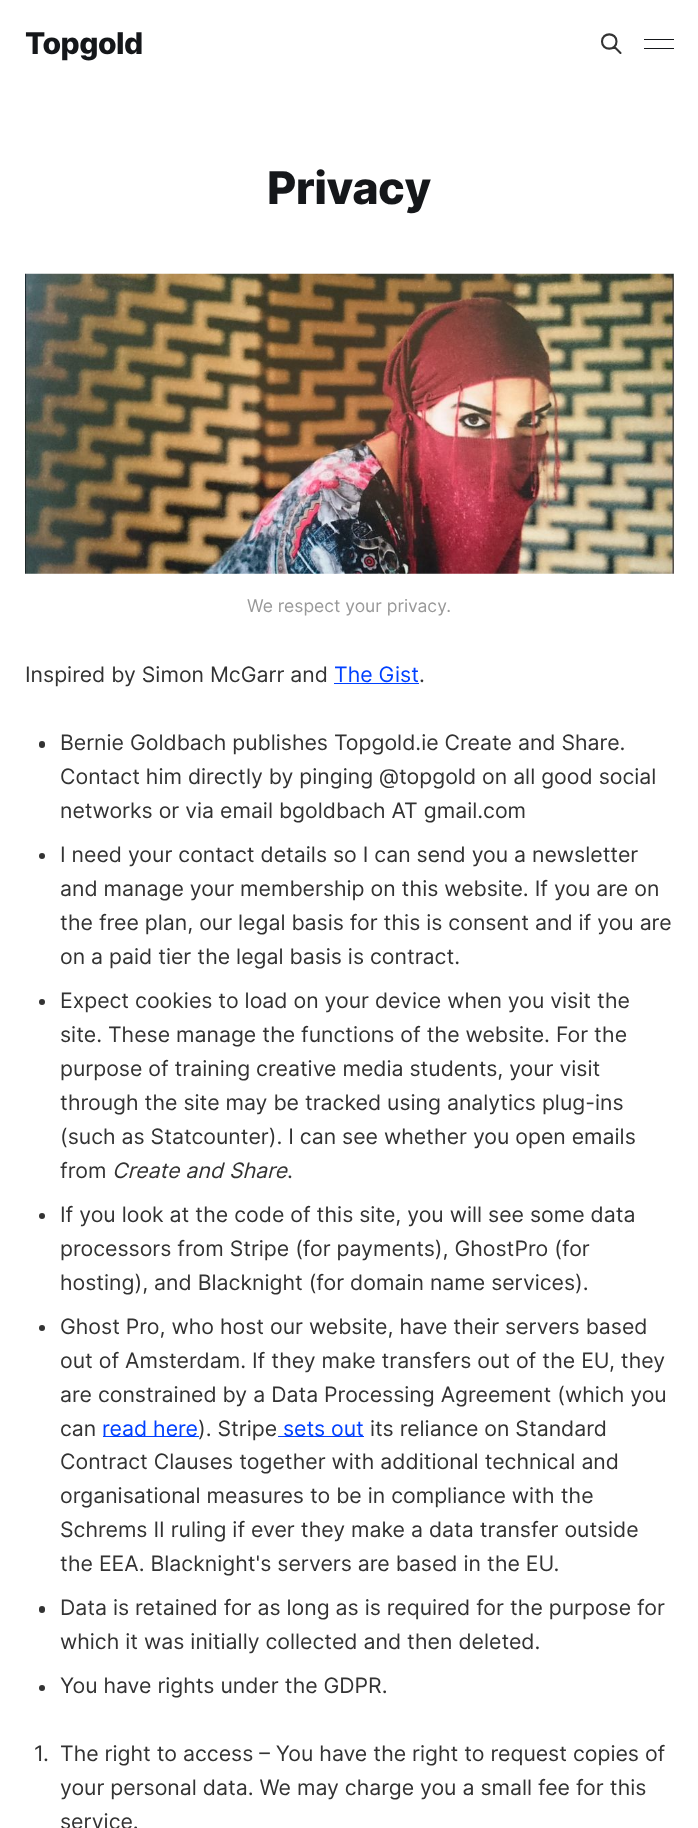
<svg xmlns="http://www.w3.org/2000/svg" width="698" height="1828">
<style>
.a{font:800 30px Inter;letter-spacing:-0.5px;fill:#15171a}
.b{font:800 45px Inter;letter-spacing:-0.5px;fill:#15171a}
.c{font:17.5px Inter;fill:#999}
.d{font:21.25px Inter;fill:#333}
.e{font:21.25px Inter;fill:#0040ff}
.f{font:italic 21.25px Inter;fill:#333}
</style>
<rect width="100%" height="100%" fill="#fff"/>
<path fill="none" stroke="#333" stroke-width="2.1" stroke-linecap="round" stroke-linejoin="round" d="M620.5 53l-6-6m2-5.5c0 9.5-14.5 9.5-14.5 0c0-9.5 14.5-9.5 14.5 0z"/>
<path fill="#15171a" d="M644 39h30v1H644z"/>
<path fill="#15171a" d="M644 48h30v1H644z"/>
<image href="1.png" x="25" y="273" width="649" height="301"/>
<path fill="#0040ff" d="M334 683h85v1H334z"/>
<rect fill="#333" x="39" y="741" width="6" height="7" rx="3"/>
<circle fill="#333" cx="42" cy="856" r="3"/>
<circle fill="#333" cx="42" cy="1002" r="3"/>
<circle fill="#333" cx="42" cy="1216" r="3"/>
<circle fill="#333" cx="42" cy="1328" r="3"/>
<path fill="#0040ff" d="M103 1436h96v1H103z"/>
<path fill="#0040ff" d="M278 1436h86v1H278z"/>
<rect fill="#333" x="39" y="1606" width="6" height="7" rx="3"/>
<circle fill="#333" cx="42" cy="1688" r="3"/>
<text class="a" x="25" y="54">Topgold</text>
<text class="b" x="267" y="204">Privacy</text>
<text class="c" x="247" y="612">We respect your privacy.</text>
<text class="d" x="25" y="682">Inspired by Simon McGarr and</text>
<text class="e" x="334" y="682">The Gist</text>
<text class="d" x="419" y="682">.</text>
<text class="d" x="60" y="750">Bernie Goldbach publishes Topgold.ie Create and Share.</text>
<text class="d" x="60" y="784">Contact him directly by pinging @topgold on all good social</text>
<text class="d" x="60" y="818">networks or via email bgoldbach AT gmail.com</text>
<text class="d" x="60" y="862">I need your contact details so I can send you a newsletter</text>
<text class="d" x="60" y="896">and manage your membership on this website. If you are on</text>
<text class="d" x="60" y="930">the free plan, our legal basis for this is consent and if you are</text>
<text class="d" x="60" y="964">on a paid tier the legal basis is contract.</text>
<text class="d" x="60" y="1008">Expect cookies to load on your device when you visit the</text>
<text class="d" x="60" y="1042">site. These manage the functions of the website. For the</text>
<text class="d" x="60" y="1076">purpose of training creative media students, your visit</text>
<text class="d" x="60" y="1110">through the site may be tracked using analytics plug-ins</text>
<text class="d" x="60" y="1144">(such as Statcounter). I can see whether you open emails</text>
<text class="d" x="60" y="1178">from</text>
<text class="f" x="112" y="1178">Create and Share</text>
<text class="d" x="287" y="1178">.</text>
<text class="d" x="60" y="1222">If you look at the code of this site, you will see some data</text>
<text class="d" x="60" y="1256">processors from Stripe (for payments), GhostPro (for</text>
<text class="d" x="60" y="1290">hosting), and Blacknight (for domain name services).</text>
<text class="d" x="60" y="1334">Ghost Pro, who host our website, have their servers based</text>
<text class="d" x="60" y="1368">out of Amsterdam. If they make transfers out of the EU, they</text>
<text class="d" x="60" y="1402">are constrained by a Data Processing Agreement (which you</text>
<text class="d" x="60" y="1436">can</text>
<text class="e" x="102" y="1436">read here</text>
<text class="d" x="198" y="1436">). Stripe</text>
<text class="e" x="283" y="1436">sets out</text>
<text class="d" x="370" y="1436">its reliance on Standard</text>
<text class="d" x="60" y="1469">Contract Clauses together with additional technical and</text>
<text class="d" x="60" y="1503">organisational measures to be in compliance with the</text>
<text class="d" x="60" y="1537">Schrems II ruling if ever they make a data transfer outside</text>
<text class="d" x="60" y="1571">the EEA. Blacknight's servers are based in the EU.</text>
<text class="d" x="60" y="1615">Data is retained for as long as is required for the purpose for</text>
<text class="d" x="60" y="1649">which it was initially collected and then deleted.</text>
<text class="d" x="60" y="1693">You have rights under the GDPR.</text>
<text class="d" x="34" y="1761">1.</text>
<text class="d" x="60" y="1761">The right to access – You have the right to request copies of</text>
<text class="d" x="60" y="1795">your personal data. We may charge you a small fee for this</text>
<text class="d" x="60" y="1829">service.</text>
</svg>
